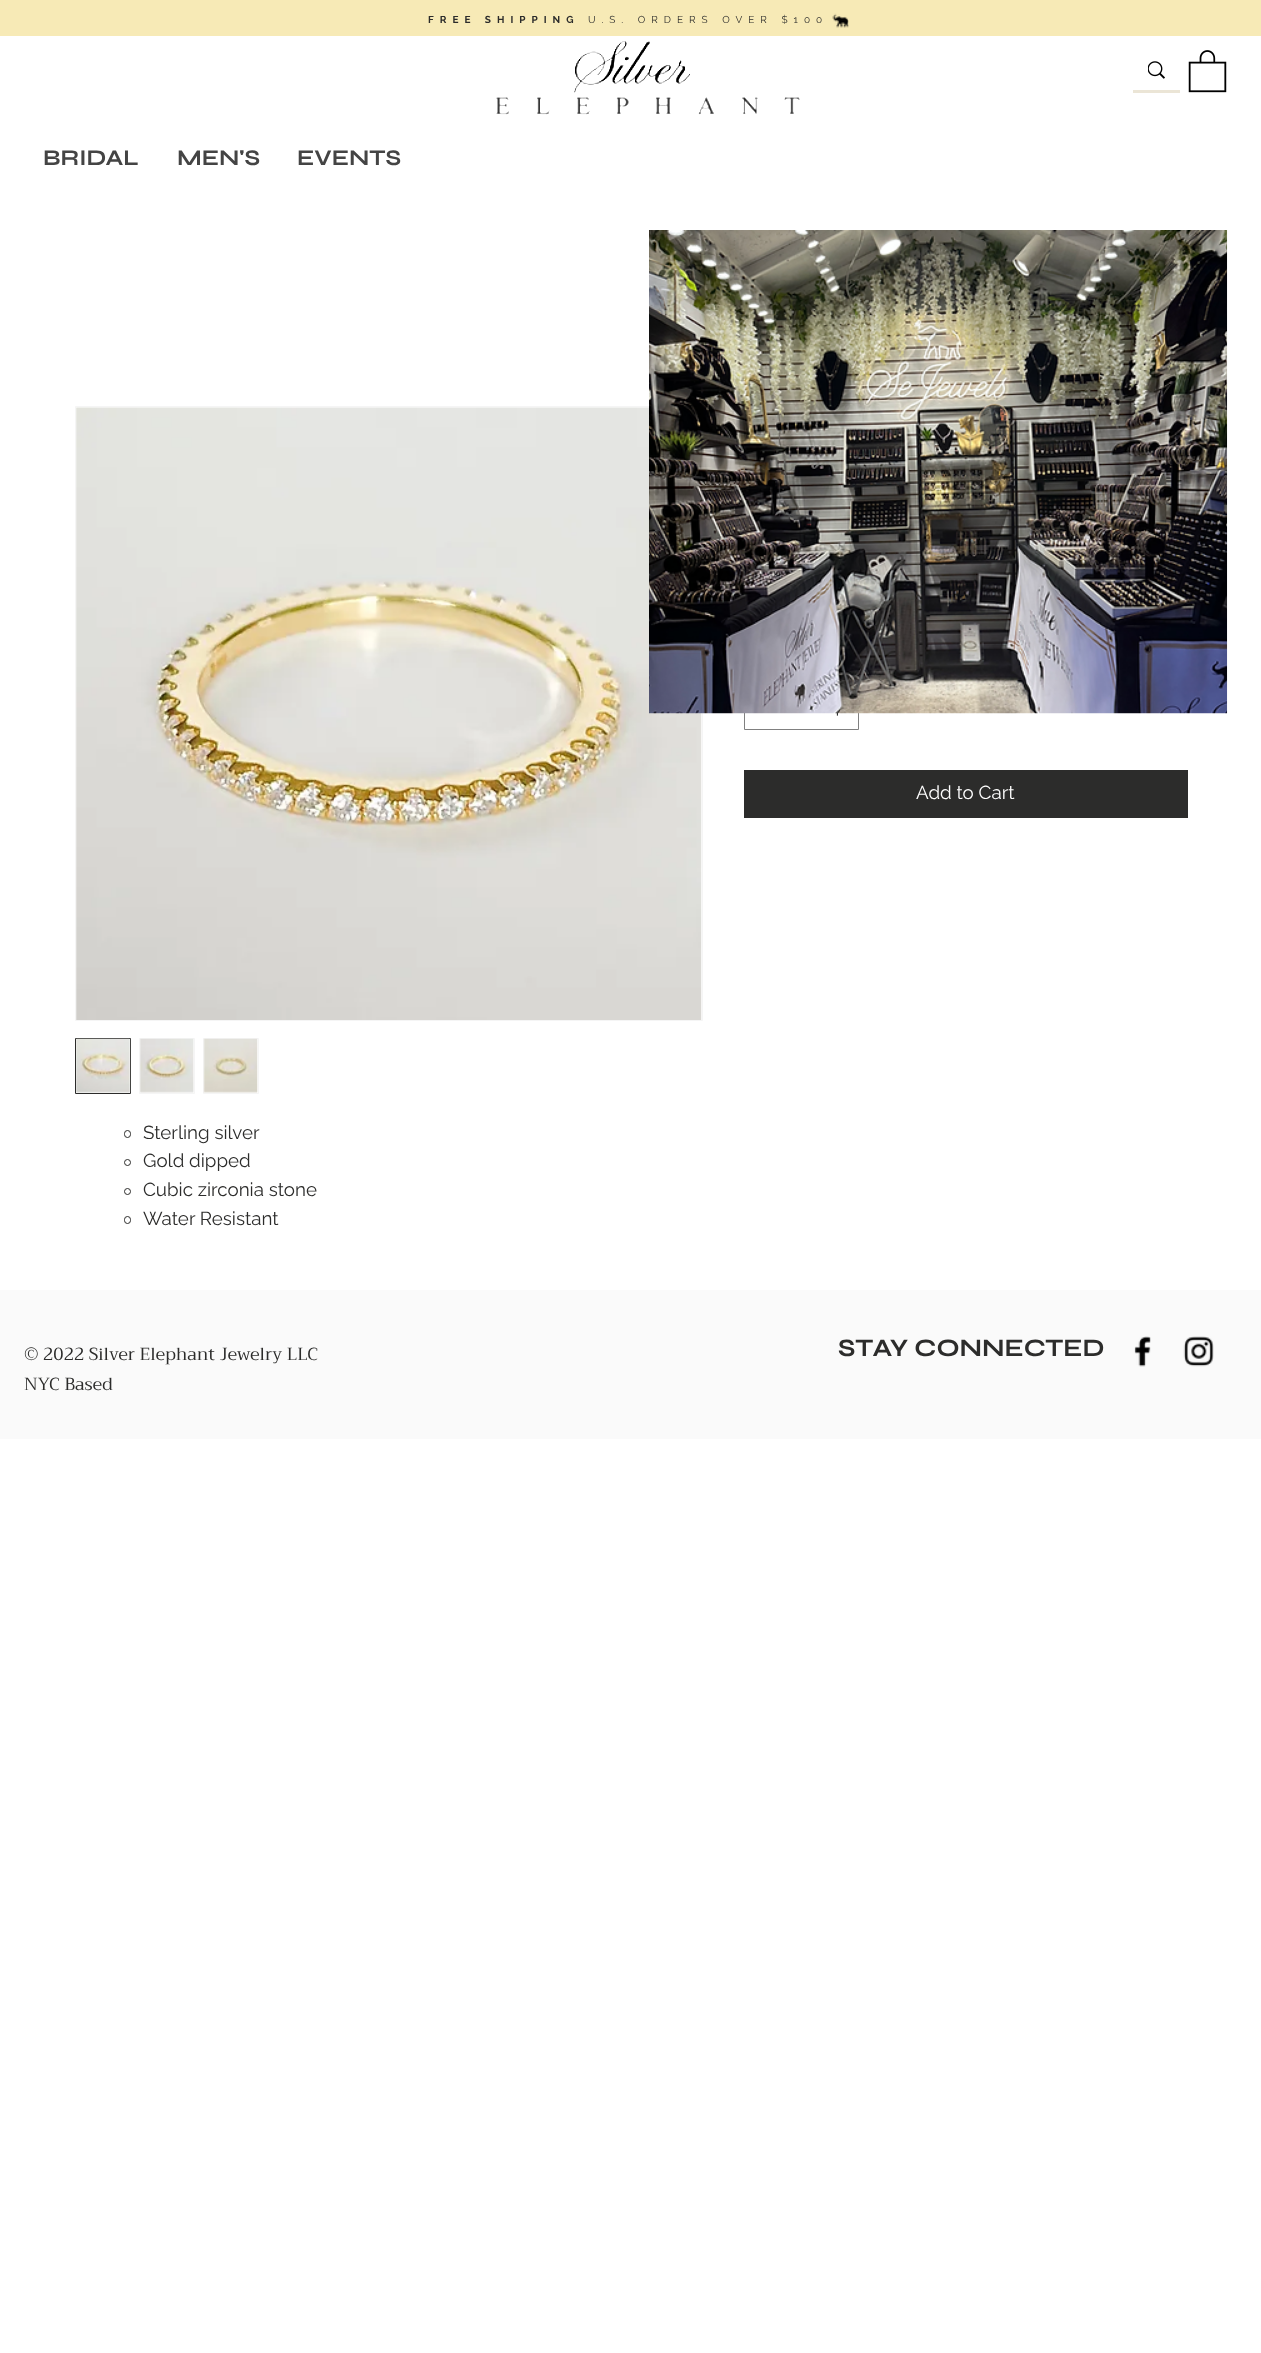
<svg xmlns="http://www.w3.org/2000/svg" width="1261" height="2353">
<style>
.a{font:bold 10px Raleway;letter-spacing:6px;fill:#2c2c2b}
.b{font:10px Raleway;letter-spacing:6px;fill:#2c2c2b}
.c{font:bold 22.5px Syne;fill:#444}
.d{font:18.75px Raleway;fill:#fff}
.e{font:18.75px Raleway;fill:#2c2c2b}
.f{font:17.5px Trirong;fill:#2c2c2b}
.g{font:bold 25px Syne;fill:#2c2c2b}
</style>
<rect width="100%" height="100%" fill="#fff"/>
<path fill="#f7eab6" d="M0 0h1261v36H0z"/>
<image href="1.png" x="832" y="13" width="17" height="15"/>
<image href="2.png" x="574" y="41" width="116" height="52"/>
<path fill="#ebe5d6" d="M1133 90h47v3H1133z"/>
<image href="3.png" x="1148" y="61" width="17" height="18"/>
<image href="4.png" x="1188" y="50" width="39" height="43"/>
<image href="5.png" x="496" y="97" width="304" height="18"/>
<path fill="none" stroke="#808080" d="M744.5 684.5h114v45H744.5z"/>
<image href="7.png" x="836" y="713" width="2" height="3"/>
<path fill="none" stroke="#f5f5f5" d="M75.5 406.5h627v614H75.5z"/>
<image href="8.png" x="76" y="407" width="626" height="613"/>
<image href="6.png" x="649" y="230" width="579" height="484"/>
<path fill="#2c2c2b" d="M744 770h444v48H744z"/>
<path fill="none" stroke="#2c2c2b" d="M75.5 1038.5h55v55H75.5z"/>
<image href="9.png" x="76" y="1038" width="55" height="55"/>
<path fill="none" stroke="#f5f5f5" d="M139.5 1038.5h55v55H139.5z"/>
<image href="10.png" x="140" y="1038" width="54" height="55"/>
<path fill="none" stroke="#f5f5f5" d="M203.5 1038.5h55v55H203.5z"/>
<image href="11.png" x="203" y="1038" width="55" height="55"/>
<rect fill="none" stroke="#2c2c2b" x="124.5" y="1130.5" width="6" height="7" rx="3"/>
<circle fill="none" stroke="#2c2c2b" cx="127.5" cy="1162.5" r="3"/>
<circle fill="none" stroke="#2c2c2b" cx="127.5" cy="1191.5" r="3"/>
<rect fill="none" stroke="#2c2c2b" x="124.5" y="1216.5" width="6" height="7" rx="3"/>
<path fill="#fafafa" d="M0 1290h1261v149H0z"/>
<image href="12.png" x="1134" y="1336" width="17" height="31"/>
<image href="13.png" x="1183" y="1336" width="31" height="31"/>
<text class="a" x="428" y="23">FREE SHIPPING</text>
<text class="b" x="588" y="23">U.S. ORDERS OVER $100</text>
<text class="c" x="43" y="165">BRIDAL</text>
<text class="c" x="177" y="165">MEN'S</text>
<text class="c" x="297" y="165">EVENTS</text>
<text class="d" x="916" y="799">Add to Cart</text>
<text class="e" x="143" y="1139">Sterling silver</text>
<text class="e" x="143" y="1167">Gold dipped</text>
<text class="e" x="143" y="1196">Cubic zirconia stone</text>
<text class="e" x="143" y="1225">Water Resistant</text>
<text class="f" x="24" y="1360">© 2022 Silver Elephant Jewelry LLC</text>
<text class="f" x="24" y="1390">NYC Based</text>
<text class="g" x="838" y="1356">STAY CONNECTED</text>
</svg>
